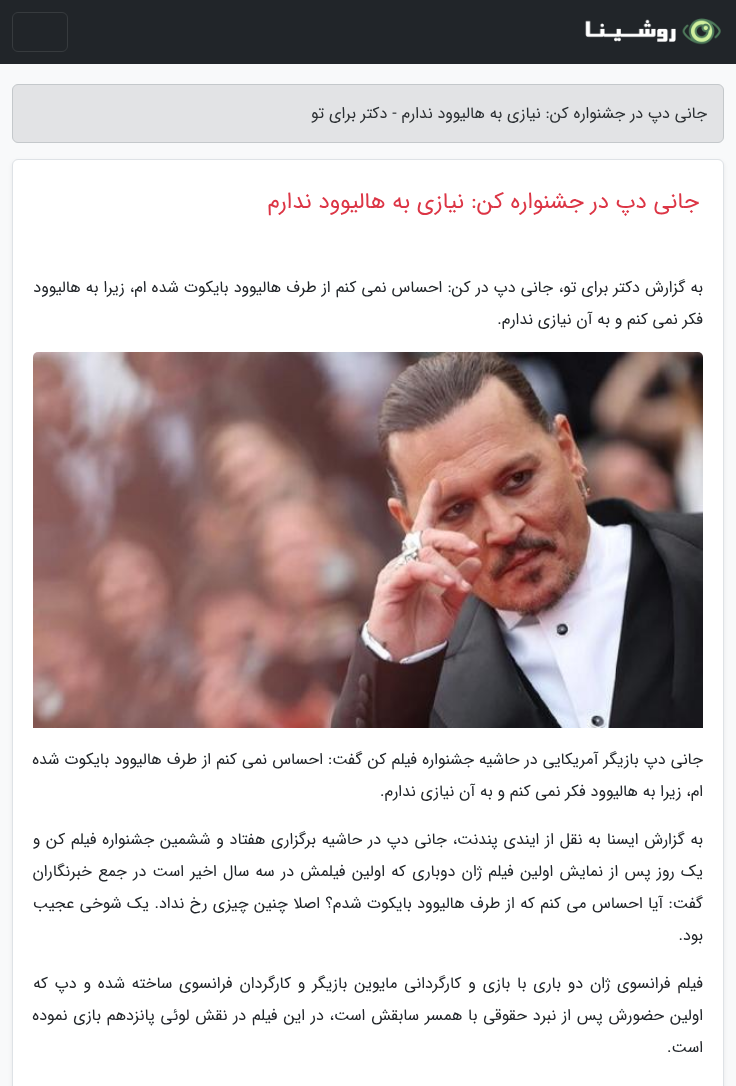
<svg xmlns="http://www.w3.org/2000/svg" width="736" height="1086">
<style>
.a{font:16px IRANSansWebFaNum;direction:rtl;fill:#2b2f32}
.b{font:22.6px IRANSansWebFaNum;direction:rtl;fill:#dc3545}
.c{font:16px IRANSansWebFaNum;direction:rtl;fill:#212529}
</style>
<rect width="100%" height="100%" fill="#f8f9fa"/>
<path fill="#212529" d="M0 0h736v64H0z"/>
<image href="1.png" x="585" y="18" width="136" height="27"/>
<rect fill="none" stroke="#373b3e" x="12.5" y="12.5" width="55" height="39" rx="5.5"/>
<rect fill="#e2e3e5" stroke="#c4c8cb" x="12.5" y="84.5" width="711" height="58" rx="5.5"/>
<rect fill="#00000012" filter="blur(2px)" x="12" y="161" width="712" height="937" rx="6"/>
<rect fill="#fff" stroke="#dee2e6" x="12.5" y="159.5" width="711" height="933" rx="5.5"/>
<image href="2.png" x="33" y="352" width="670" height="376"/>
<text class="a" x="707" y="118">جانی دپ در جشنواره کن: نیازی به هالیوود ندارم - دکتر برای تو</text>
<text class="b" x="699" y="208">جانی دپ در جشنواره کن: نیازی به هالیوود ندارم</text>
<text class="c" x="703" y="292" word-spacing="0.25">به گزارش دکتر برای تو،</text>
<text class="c" x="553" y="292" word-spacing="0.25">جانی دپ در کن: احساس نمی کنم از طرف هالیوود بایکوت شده ام، زیرا به هالیوود</text>
<text class="c" x="703" y="324">فکر نمی کنم و به آن نیازی ندارم.</text>
<text class="c" x="703" y="764" word-spacing="0.25">جانی دپ بازیگر آمریکایی در حاشیه جشنواره فیلم کن گفت: احساس نمی کنم از طرف هالیوود بایکوت شده</text>
<text class="c" x="703" y="796">ام، زیرا به هالیوود فکر نمی کنم و به آن نیازی ندارم.</text>
<text class="c" x="703" y="844" word-spacing="1">به گزارش ایسنا به نقل از ایندی پندنت، جانی دپ در حاشیه برگزاری هفتاد و ششمین جشنواره فیلم کن و</text>
<text class="c" x="703" y="876" word-spacing="1.5">یک روز پس از نمایش اولین فیلم ژان دوباری که اولین فیلمش در سه سال اخیر است در جمع خبرنگاران</text>
<text class="c" x="703" y="908" word-spacing="0.6">گفت: آیا احساس می کنم که از طرف هالیوود بایکوت شدم؟ اصلا چنین چیزی رخ نداد. یک شوخی عجیب</text>
<text class="c" x="703" y="940">بود.</text>
<text class="c" x="703" y="988" word-spacing="2">فیلم فرانسوی ژان دو باری با بازی و کارگردانی مایوین بازیگر و کارگردان فرانسوی ساخته شده و دپ که</text>
<text class="c" x="703" y="1020" word-spacing="1">اولین حضورش پس از نبرد حقوقی با همسر سابقش است، در این فیلم در نقش لوئی پانزدهم بازی نموده</text>
<text class="c" x="703" y="1052">است.</text>
</svg>
